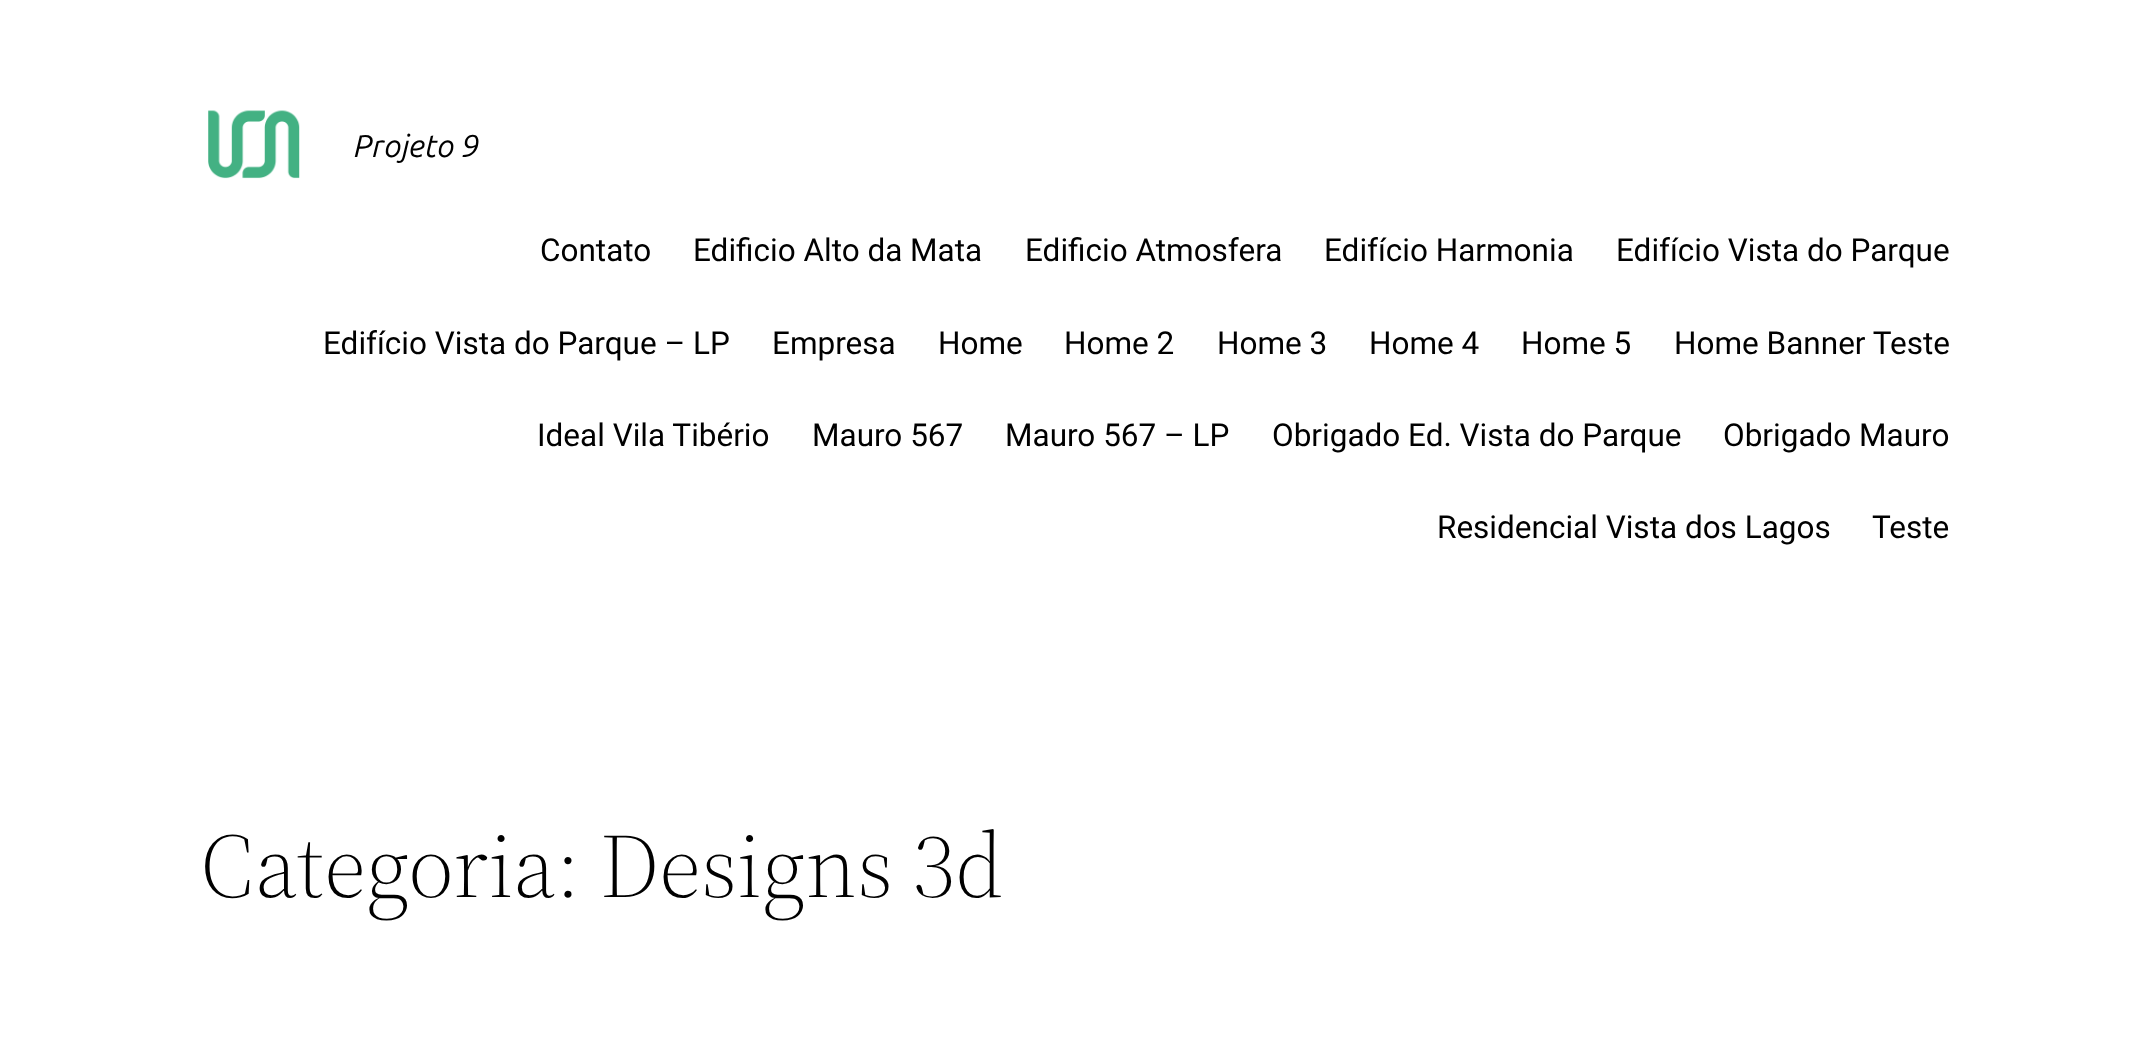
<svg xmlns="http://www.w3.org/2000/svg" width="2149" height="1063">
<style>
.a{font:italic 31.5px Ubuntu;fill:#000}
.b{font:31.5px Roboto;fill:#000}
.c{font:300 91px 'Source Serif 4';fill:#000}
</style>
<rect width="100%" height="100%" fill="#fff"/>
<image href="1.png" x="208" y="110" width="92" height="69"/>
<text class="a" x="354" y="157">Projeto 9</text>
<text class="b" x="540" y="261">Contato</text>
<text class="b" x="693" y="261">Edificio Alto da Mata</text>
<text class="b" x="1025" y="261">Edificio Atmosfera</text>
<text class="b" x="1324" y="261">Edifício Harmonia</text>
<text class="b" x="1616" y="261">Edifício Vista do Parque</text>
<text class="b" x="323" y="354">Edifício Vista do Parque – LP</text>
<text class="b" x="772" y="354">Empresa</text>
<text class="b" x="938" y="354">Home</text>
<text class="b" x="1064" y="354">Home 2</text>
<text class="b" x="1217" y="354">Home 3</text>
<text class="b" x="1369" y="354">Home 4</text>
<text class="b" x="1521" y="354">Home 5</text>
<text class="b" x="1674" y="354">Home Banner Teste</text>
<text class="b" x="537" y="446">Ideal Vila Tibério</text>
<text class="b" x="812" y="446">Mauro 567</text>
<text class="b" x="1005" y="446">Mauro 567 – LP</text>
<text class="b" x="1272" y="446">Obrigado Ed. Vista do Parque</text>
<text class="b" x="1723" y="446">Obrigado Mauro</text>
<text class="b" x="1437" y="538">Residencial Vista dos Lagos</text>
<text class="b" x="1872" y="538">Teste</text>
<text class="c" x="200" y="897">Categoria: Designs 3d</text>
</svg>
